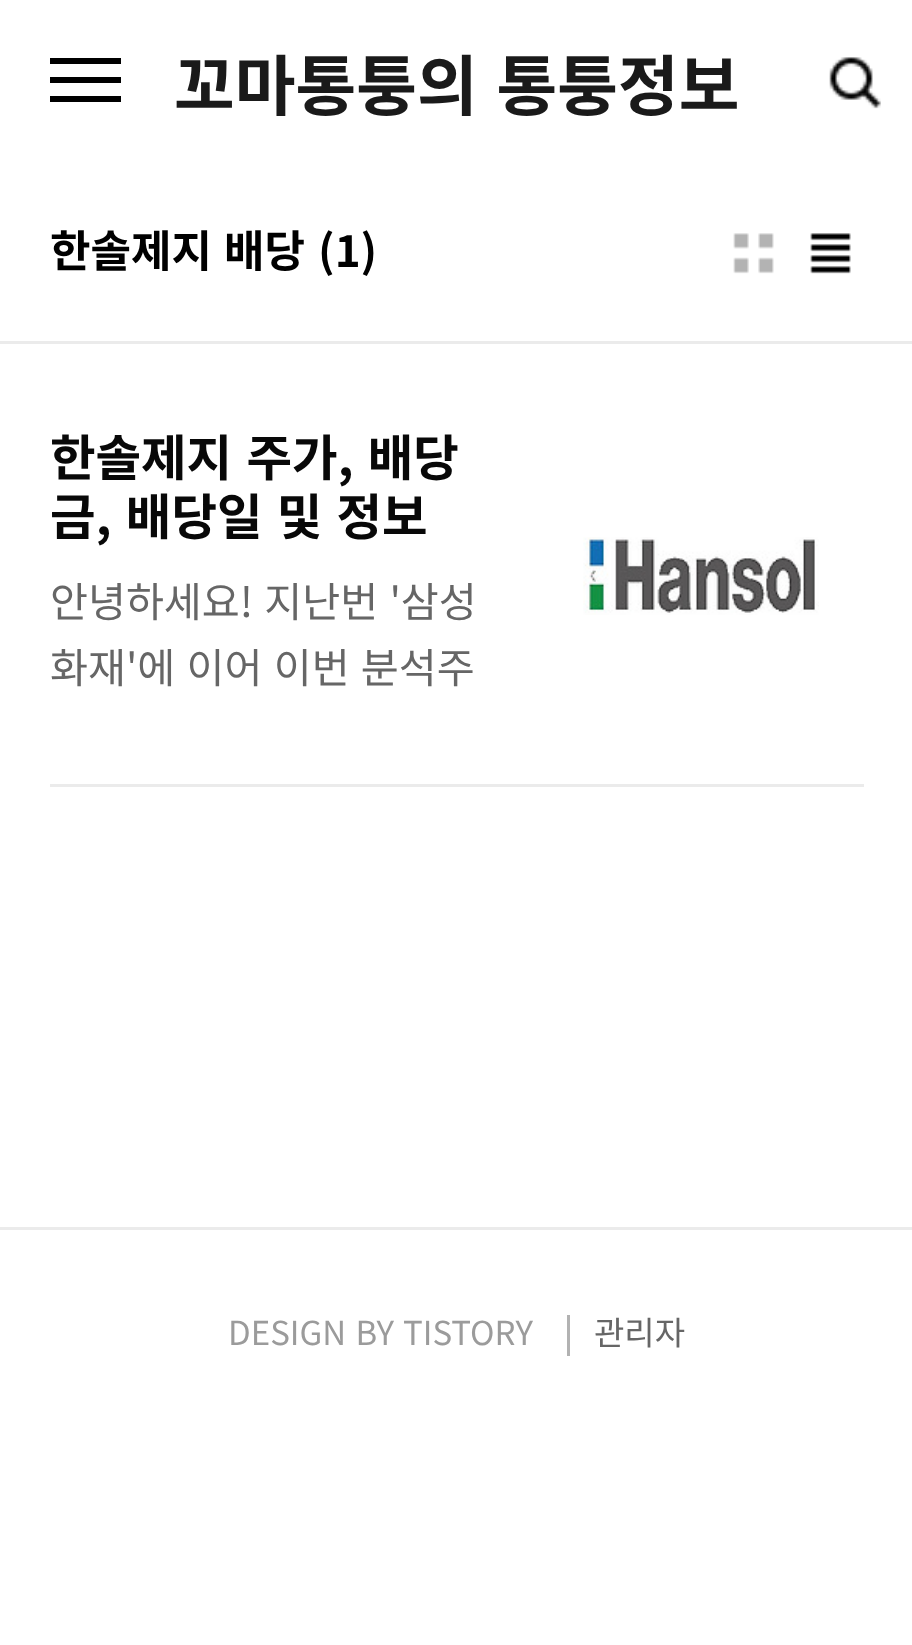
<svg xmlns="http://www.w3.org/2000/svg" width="912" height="1645">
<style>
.a{font:bold 66px Noto Sans KR;fill:#1a1a1a}
.b{font:bold 44px Noto Sans KR;fill:#000}
.c{font:bold 49.5px Noto Sans KR;fill:#080808}
.d{font:41.25px Noto Sans KR;fill:#666}
.e{font:33px Noto Sans KR;fill:#9b9b9b}
.f{font:33px Noto Sans KR;fill:#666}
</style>
<rect width="100%" height="100%" fill="#fff"/>
<path fill="#000" d="M50 58h71v6H50z"/>
<path fill="#000" d="M50 77h71v6H50z"/>
<path fill="#000" d="M50 96h71v6H50z"/>
<image href="1.png" x="829" y="57" width="52" height="52"/>
<path fill="#ebebeb" d="M0 341h912v3H0z"/>
<image href="2.png" x="733" y="233" width="41" height="41"/>
<image href="3.png" x="810" y="233" width="41" height="41"/>
<path fill="#ebebeb" d="M50 784h814v3H50z"/>
<image href="4.png" x="583" y="537" width="236" height="78"/>
<path fill="#ebebeb" d="M0 1227h912v3H0z"/>
<path fill="#b2b2b2" d="M567 1315h3v41H567z"/>
<text class="a" x="174" y="110" word-spacing="4">꼬마통퉁의 통퉁정보</text>
<text class="b" x="50" y="267" word-spacing="2">한솔제지 배당</text>
<text class="b" x="318" y="267">(1)</text>
<text class="c" x="50" y="476" word-spacing="3">한솔제지 주가, 배당</text>
<text class="c" x="50" y="535" word-spacing="3">금, 배당일 및 정보</text>
<text class="d" x="50" y="617" word-spacing="2">안녕하세요! 지난번 '삼성</text>
<text class="d" x="50" y="683" word-spacing="2">화재'에 이어 이번 분석주</text>
<text class="e" x="228" y="1345" word-spacing="2">DESIGN BY</text>
<text class="e" x="403" y="1345">TISTORY</text>
<text class="f" x="594" y="1345">관리자</text>
</svg>
